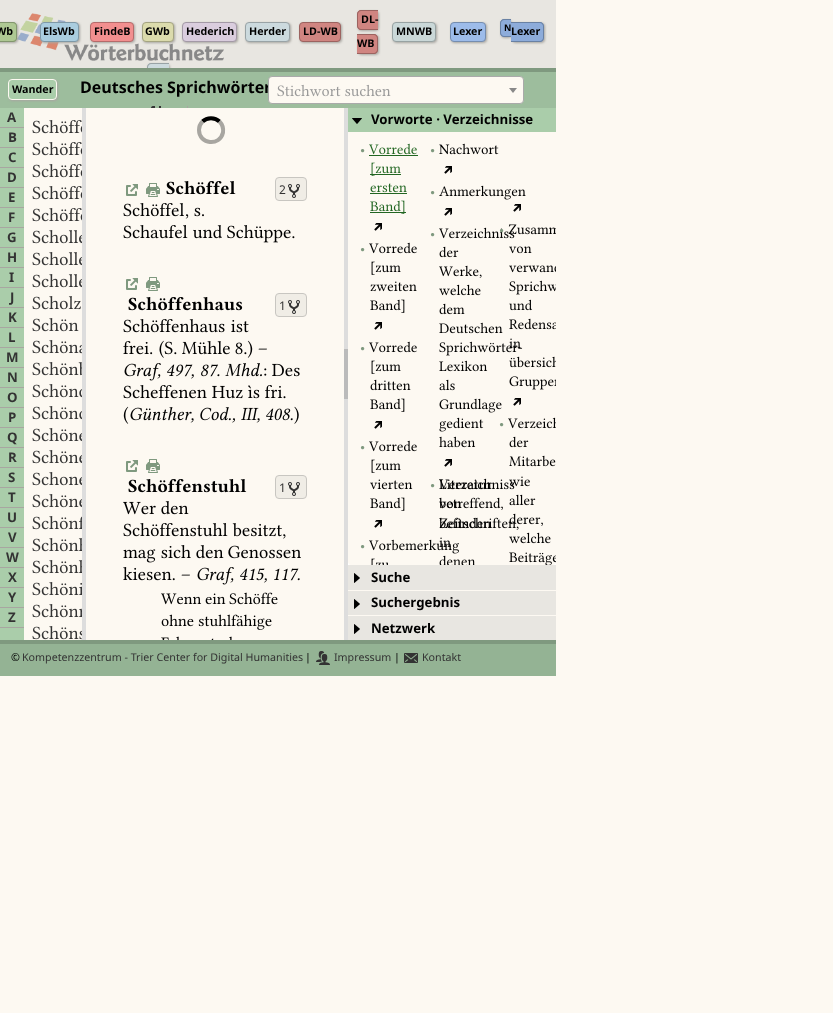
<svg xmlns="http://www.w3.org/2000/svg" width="833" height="1013">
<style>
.a{font:bold 10.7px Noto Sans;fill:#000}
.b{font:bold 9px Noto Sans;fill:#000}
.c{font:bold 16px Noto Sans;fill:#000}
.d{font:bold 13.25px Noto Sans;fill:#333}
.e{font:12px Noto Sans;fill:#333}
.f{font:bold 13.25px Noto Sans;fill:#000}
.g{font:10.7px Noto Sans;fill:#000}
.h{font:10.7px Noto Sans;fill:#333}
</style>
<defs>
<clipPath id="clip1"><path d="M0 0h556v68H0z"/></clipPath>
<clipPath id="clip2"><path d="M0 0h556v68H0z"/></clipPath>
</defs>
<rect width="100%" height="100%" fill="#fdf9f2"/>
<path fill="#7f997f" d="M0 68h556v4H0z"/>
<path fill="#e8e6e1" d="M0 0h556v68H0z"/>
<image href="1.png" x="16" y="13" width="208" height="48"/>
<rect fill="#a8a6a1" filter="blur(1px)" x="-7" y="23" width="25" height="20" rx="4"/>
<path fill="#aec893" d="M0 22h13c2 0 4 2 4 4v12c0 2-2 4-4 4h-13z"/>
<path fill="#82966e" fill-rule="evenodd" d="M-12 22h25c2 0 4 2 4 4v12c0 2-2 4-4 4h-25zm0 1h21c8.5 0 7 1 7 9c0 8 1.5 9-7 9h-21z"/>
<rect fill="#a8a6a1" filter="blur(1px)" x="41" y="23" width="39" height="20" rx="4"/>
<rect fill="#aacddf" stroke="#7f99a7" x="40.5" y="22.5" width="38" height="19" rx="3.5"/>
<rect fill="#a8a6a1" filter="blur(1px)" x="91" y="23" width="44" height="20" rx="4"/>
<rect fill="#f28f8f" stroke="#b56b6b" x="90.5" y="22.5" width="43" height="19" rx="3.5"/>
<rect fill="#a8a6a1" filter="blur(1px)" x="143" y="23" width="32" height="20" rx="4"/>
<rect fill="#dbdbac" stroke="#a4a481" x="142.5" y="22.5" width="31" height="19" rx="3.5"/>
<rect fill="#a8a6a1" filter="blur(1px)" x="183" y="23" width="55" height="20" rx="4"/>
<rect fill="#dacdde" stroke="#a399a6" x="182.5" y="22.5" width="54" height="19" rx="3.5"/>
<rect fill="#a8a6a1" filter="blur(1px)" x="246" y="23" width="45" height="20" rx="4"/>
<rect fill="#ccdade" stroke="#99a3a6" x="245.5" y="22.5" width="44" height="19" rx="3.5"/>
<rect fill="#a8a6a1" filter="blur(1px)" x="300" y="23" width="42" height="20" rx="4"/>
<rect fill="#d08581" stroke="#9c6360" x="299.5" y="22.5" width="41" height="19" rx="3.5"/>
<rect fill="#a8a6a1" filter="blur(1px)" x="358" y="11" width="21" height="20" rx="4"/>
<path fill="#d08581" d="M361 10h17v20h-17c-2 0-4-2-4-4v-12c0-2 2-4 4-4z"/>
<path fill="#9c6360" fill-rule="evenodd" d="M361 10h17v20h-17c-2 0-4-2-4-4v-12c0-2 2-4 4-4zm0 1h17v18h-17c-1.5 0-3-1.5-3-3v-12c0-1.5 1.5-3 3-3z"/>
<rect fill="#a8a6a1" filter="blur(1px)" x="358" y="35" width="21" height="20" rx="4"/>
<path fill="#d08581" d="M357 34h17c2 0 4 2 4 4v12c0 2-2 4-4 4h-17z"/>
<path fill="#9c6360" fill-rule="evenodd" d="M357 34h17c2 0 4 2 4 4v12c0 2-2 4-4 4h-17zm0 1h17c1.5 0 3 1.5 3 3v12c0 1.5-1.5 3-3 3h-17z"/>
<rect fill="#a8a6a1" filter="blur(1px)" x="393" y="23" width="44" height="20" rx="4"/>
<rect fill="#cad8d8" stroke="#97a2a2" x="392.5" y="22.5" width="43" height="19" rx="3.5"/>
<rect fill="#a8a6a1" filter="blur(1px)" x="451" y="23" width="36" height="20" rx="4"/>
<rect fill="#9dbcea" stroke="#758daf" x="450.5" y="22.5" width="35" height="19" rx="3.5"/>
<rect fill="#a8a6a1" filter="blur(1px)" x="501" y="20" width="11" height="18" rx="4"/>
<path fill="#8dacda" d="M504 19h7v18h-7c-2 0-4-2-4-4v-10c0-2 2-4 4-4z"/>
<path fill="#6981a3" fill-rule="evenodd" d="M504 19h7v18h-7c-2 0-4-2-4-4v-10c0-2 2-4 4-4zm0 1h7v16h-7c-1.5 0-3-1.5-3-3v-10c0-1.5 1.5-3 3-3z"/>
<rect fill="#a8a6a1" filter="blur(1px)" x="512" y="23" width="33" height="20" rx="4"/>
<path fill="#8dacda" d="M511 22h29c2 0 4 2 4 4v12c0 2-2 4-4 4h-29z"/>
<path fill="#6981a3" fill-rule="evenodd" d="M511 22h29c2 0 4 2 4 4v12c0 2-2 4-4 4h-29zm0 1h29c1.5 0 3 1.5 3 3v12c0 1.5-1.5 3-3 3h-29z"/>
<g clip-path="url(#clip1)">
<rect fill="#a8a6a1" filter="blur(1px)" x="148" y="64" width="22" height="20" rx="4"/>
</g>
<path fill="#cddade" d="M151 63h18v5h-22v-1c0-2 2-4 4-4z"/>
<g clip-path="url(#clip2)">
<path fill="#99a3a6" fill-rule="evenodd" d="M151 63h18v20h-18c-2 0-4-2-4-4v-12c0-2 2-4 4-4zm0 1h18v18h-18c-1.5 0-3-1.5-3-3v-12c0-1.5 1.5-3 3-3z"/>
</g>
<path fill="#9dbd9d" d="M0 72h556v36H0z"/>
<rect fill="#a8a6a1" filter="blur(1px)" x="9" y="80" width="49" height="21" rx="4"/>
<rect fill="#aacdaa" stroke="#fdf9f2" x="8.5" y="79.5" width="48" height="20" rx="3.5"/>
<image href="3.png" x="151" y="106" width="10" height="2"/>
<path fill="#a8a6a1" d="M187 106h1v2H187z"/>
<path fill="#ddd" d="M82 108h4v532H82z"/>
<path fill="#ddd" d="M344 108h4v532H344z"/>
<path fill="#bbb" d="M344 349h4v50H344z"/>
<path fill="#aacdaa" d="M0 108h24v532H0z"/>
<path fill="#a8a6a1" d="M0 127h24v1H0z"/>
<path fill="#a8a6a1" d="M0 147h24v1H0z"/>
<path fill="#a8a6a1" d="M0 167h24v1H0z"/>
<path fill="#a8a6a1" d="M0 187h24v1H0z"/>
<path fill="#a8a6a1" d="M0 207h24v1H0z"/>
<path fill="#a8a6a1" d="M0 227h24v1H0z"/>
<path fill="#a8a6a1" d="M0 247h24v1H0z"/>
<path fill="#a8a6a1" d="M0 267h24v1H0z"/>
<path fill="#a8a6a1" d="M0 287h24v1H0z"/>
<path fill="#a8a6a1" d="M0 307h24v1H0z"/>
<path fill="#a8a6a1" d="M0 327h24v1H0z"/>
<path fill="#a8a6a1" d="M0 347h24v1H0z"/>
<path fill="#a8a6a1" d="M0 367h24v1H0z"/>
<path fill="#a8a6a1" d="M0 387h24v1H0z"/>
<path fill="#a8a6a1" d="M0 407h24v1H0z"/>
<path fill="#a8a6a1" d="M0 427h24v1H0z"/>
<path fill="#a8a6a1" d="M0 447h24v1H0z"/>
<path fill="#a8a6a1" d="M0 467h24v1H0z"/>
<path fill="#a8a6a1" d="M0 487h24v1H0z"/>
<path fill="#a8a6a1" d="M0 507h24v1H0z"/>
<path fill="#a8a6a1" d="M0 527h24v1H0z"/>
<path fill="#a8a6a1" d="M0 547h24v1H0z"/>
<path fill="#a8a6a1" d="M0 567h24v1H0z"/>
<path fill="#a8a6a1" d="M0 587h24v1H0z"/>
<path fill="#a8a6a1" d="M0 607h24v1H0z"/>
<path fill="#a8a6a1" d="M0 627h24v1H0z"/>
<image href="4.png" x="32" y="120" width="50" height="14"/>
<image href="4.png" x="32" y="142" width="50" height="14"/>
<image href="4.png" x="32" y="164" width="50" height="14"/>
<image href="4.png" x="32" y="186" width="50" height="14"/>
<image href="4.png" x="32" y="208" width="50" height="14"/>
<image href="5.png" x="32" y="230" width="50" height="14"/>
<image href="5.png" x="32" y="252" width="50" height="14"/>
<image href="5.png" x="32" y="274" width="50" height="14"/>
<image href="6.png" x="32" y="296" width="49" height="14"/>
<image href="7.png" x="32" y="318" width="47" height="14"/>
<image href="8.png" x="32" y="340" width="50" height="14"/>
<image href="9.png" x="32" y="362" width="50" height="14"/>
<image href="10.png" x="32" y="384" width="50" height="14"/>
<image href="10.png" x="32" y="406" width="50" height="14"/>
<image href="11.png" x="32" y="428" width="50" height="14"/>
<image href="11.png" x="32" y="450" width="50" height="14"/>
<image href="12.png" x="32" y="472" width="50" height="14"/>
<image href="11.png" x="32" y="494" width="50" height="14"/>
<image href="13.png" x="32" y="516" width="50" height="14"/>
<image href="14.png" x="32" y="538" width="50" height="14"/>
<image href="14.png" x="32" y="560" width="50" height="14"/>
<image href="15.png" x="32" y="582" width="50" height="14"/>
<image href="16.png" x="32" y="604" width="50" height="14"/>
<image href="17.png" x="32" y="626" width="50" height="14"/>
<path fill="none" stroke="#000" stroke-width="4" d="M202.5 121.5c4.5-4.5 12.5-4.5 17 0"/>
<path fill="none" stroke="#a8a6a1" stroke-width="4" d="M219.5 121.5c3 3 4 7 3.5 11c-3 14-24 12-24-2.5c0-3 1.5-6.5 3.5-8.5"/>
<image href="18.png" x="126" y="184" width="12" height="12"/>
<image href="19.png" x="146" y="183" width="14" height="14"/>
<image href="20.png" x="166" y="181" width="70" height="14"/>
<rect fill="#f0ede6" stroke="#c8c6c1" x="275.5" y="177.5" width="31" height="23" rx="3.5"/>
<image href="21.png" x="288" y="184" width="12" height="14"/>
<image href="22.png" x="123" y="203" width="61" height="14"/>
<image href="23.png" x="185" y="214" width="4" height="5"/>
<image href="24.png" x="194" y="207" width="10" height="10"/>
<image href="25.png" x="123" y="225" width="65" height="14"/>
<image href="26.png" x="193" y="225" width="29" height="14"/>
<image href="27.png" x="227" y="225" width="68" height="18"/>
<image href="18.png" x="126" y="278" width="12" height="12"/>
<image href="19.png" x="146" y="277" width="14" height="14"/>
<image href="28.png" x="128" y="297" width="115" height="14"/>
<rect fill="#f0ede6" stroke="#c8c6c1" x="275.5" y="293.5" width="31" height="23" rx="3.5"/>
<image href="21.png" x="288" y="300" width="12" height="14"/>
<image href="29.png" x="123" y="319" width="102" height="14"/>
<image href="30.png" x="231" y="320" width="18" height="13"/>
<image href="31.png" x="123" y="341" width="30" height="14"/>
<image href="32.png" x="159" y="340" width="18" height="18"/>
<image href="33.png" x="182" y="341" width="48" height="14"/>
<image href="34.png" x="235" y="340" width="18" height="18"/>
<image href="35.png" x="258" y="348" width="9" height="2"/>
<image href="36.png" x="124" y="363" width="37" height="18"/>
<image href="37.png" x="167" y="364" width="27" height="15"/>
<image href="38.png" x="201" y="364" width="19" height="13"/>
<image href="39.png" x="225" y="363" width="37" height="14"/>
<image href="40.png" x="264" y="368" width="3" height="8"/>
<image href="41.png" x="272" y="363" width="28" height="14"/>
<image href="42.png" x="123" y="385" width="84" height="14"/>
<image href="43.png" x="212" y="385" width="31" height="14"/>
<image href="44.png" x="248" y="385" width="12" height="14"/>
<image href="45.png" x="265" y="385" width="21" height="14"/>
<image href="46.png" x="123" y="406" width="6" height="18"/>
<image href="47.png" x="130" y="407" width="64" height="16"/>
<image href="48.png" x="200" y="407" width="35" height="16"/>
<image href="49.png" x="241" y="407" width="19" height="16"/>
<image href="50.png" x="266" y="408" width="27" height="13"/>
<image href="51.png" x="294" y="406" width="5" height="18"/>
<image href="18.png" x="126" y="460" width="12" height="12"/>
<image href="19.png" x="146" y="459" width="14" height="14"/>
<image href="52.png" x="128" y="479" width="119" height="14"/>
<rect fill="#f0ede6" stroke="#c8c6c1" x="275.5" y="475.5" width="31" height="23" rx="3.5"/>
<image href="21.png" x="288" y="482" width="12" height="14"/>
<image href="53.png" x="123" y="501" width="33" height="14"/>
<image href="54.png" x="161" y="501" width="28" height="14"/>
<image href="55.png" x="123" y="523" width="105" height="14"/>
<image href="56.png" x="232" y="523" width="54" height="16"/>
<image href="57.png" x="123" y="549" width="33" height="14"/>
<image href="58.png" x="161" y="545" width="30" height="14"/>
<image href="54.png" x="196" y="545" width="28" height="14"/>
<image href="59.png" x="228" y="545" width="73" height="14"/>
<image href="60.png" x="123" y="567" width="52" height="14"/>
<image href="35.png" x="181" y="574" width="9" height="2"/>
<image href="36.png" x="197" y="567" width="37" height="18"/>
<image href="61.png" x="240" y="568" width="27" height="15"/>
<image href="62.png" x="274" y="568" width="26" height="13"/>
<image href="63.png" x="161" y="593" width="41" height="12"/>
<image href="64.png" x="205" y="593" width="21" height="12"/>
<image href="65.png" x="229" y="592" width="49" height="13"/>
<image href="66.png" x="161" y="614" width="33" height="13"/>
<image href="67.png" x="198" y="614" width="74" height="16"/>
<image href="68.png" x="161" y="636" width="18" height="4"/>
<image href="69.png" x="211" y="636" width="21" height="4"/>
<path fill="#fff" d="M348 562h208v3H348z"/>
<path fill="#aacdaa" d="M348 108h208v24H348z"/>
<image href="70.png" x="352" y="118" width="10" height="6"/>
<path fill="#fdf9f2" d="M348 132h208v430c0 1.5-1.5 3-3 3h-202c-1.5 0-3-1.5-3-3z"/>
<image href="71.png" x="360" y="149" width="5" height="4"/>
<image href="72.png" x="369" y="143" width="48" height="12"/>
<path fill="#262" d="M369 155h49v1H369z"/>
<path fill="#262" d="M370 174h31v1H370z"/>
<image href="73.png" x="371" y="162" width="30" height="14"/>
<image href="74.png" x="370" y="183" width="37" height="10"/>
<path fill="#262" d="M370 193h37v1H370z"/>
<path fill="#262" d="M370 212h36v1H370z"/>
<image href="75.png" x="370" y="200" width="35" height="14"/>
<image href="76.png" x="374" y="223" width="8" height="8"/>
<image href="71.png" x="430" y="149" width="5" height="4"/>
<image href="77.png" x="439" y="143" width="60" height="12"/>
<image href="76.png" x="444" y="166" width="8" height="8"/>
<image href="71.png" x="430" y="191" width="5" height="4"/>
<image href="78.png" x="439" y="185" width="87" height="15"/>
<image href="76.png" x="444" y="208" width="8" height="8"/>
<image href="76.png" x="513" y="204" width="8" height="8"/>
<image href="79.png" x="439" y="478" width="76" height="12"/>
<image href="71.png" x="430" y="484" width="5" height="4"/>
<image href="80.png" x="439" y="479" width="53" height="11"/>
<image href="82.png" x="439" y="501" width="23" height="8"/>
<image href="81.png" x="439" y="497" width="64" height="13"/>
<image href="83.png" x="439" y="517" width="80" height="13"/>
<image href="84.png" x="439" y="517" width="51" height="12"/>
<image href="119.png" x="369" y="539" width="90" height="15"/>
<image href="85.png" x="439" y="537" width="12" height="10"/>
<image href="86.png" x="439" y="555" width="36" height="10"/>
<image href="79.png" x="439" y="227" width="76" height="12"/>
<image href="87.png" x="499" y="229" width="5" height="4"/>
<image href="88.png" x="508" y="224" width="48" height="11"/>
<image href="82.png" x="509" y="246" width="23" height="8"/>
<image href="89.png" x="509" y="265" width="47" height="8"/>
<image href="90.png" x="509" y="280" width="47" height="15"/>
<image href="91.png" x="509" y="299" width="24" height="12"/>
<image href="92.png" x="509" y="318" width="47" height="12"/>
<image href="105.png" x="439" y="341" width="84" height="15"/>
<image href="93.png" x="509" y="338" width="12" height="10"/>
<image href="94.png" x="509" y="356" width="47" height="12"/>
<image href="95.png" x="509" y="376" width="47" height="14"/>
<image href="76.png" x="513" y="398" width="8" height="8"/>
<image href="71.png" x="360" y="248" width="5" height="4"/>
<image href="96.png" x="369" y="242" width="48" height="12"/>
<image href="97.png" x="371" y="261" width="30" height="14"/>
<image href="98.png" x="370" y="281" width="47" height="11"/>
<image href="99.png" x="370" y="299" width="35" height="14"/>
<image href="76.png" x="374" y="322" width="8" height="8"/>
<image href="71.png" x="430" y="233" width="5" height="4"/>
<image href="100.png" x="439" y="246" width="20" height="12"/>
<image href="101.png" x="439" y="265" width="43" height="13"/>
<image href="102.png" x="439" y="284" width="42" height="12"/>
<image href="103.png" x="439" y="303" width="26" height="12"/>
<image href="104.png" x="439" y="322" width="64" height="12"/>
<image href="106.png" x="439" y="360" width="49" height="12"/>
<image href="107.png" x="439" y="379" width="16" height="12"/>
<image href="108.png" x="439" y="398" width="63" height="15"/>
<image href="109.png" x="439" y="417" width="45" height="15"/>
<image href="110.png" x="439" y="436" width="37" height="12"/>
<image href="76.png" x="444" y="459" width="8" height="8"/>
<image href="71.png" x="360" y="347" width="5" height="4"/>
<image href="96.png" x="369" y="341" width="48" height="12"/>
<image href="97.png" x="371" y="360" width="30" height="14"/>
<image href="111.png" x="370" y="379" width="41" height="12"/>
<image href="99.png" x="370" y="398" width="35" height="14"/>
<image href="76.png" x="374" y="421" width="8" height="8"/>
<image href="71.png" x="360" y="446" width="5" height="4"/>
<image href="96.png" x="369" y="440" width="48" height="12"/>
<image href="97.png" x="371" y="459" width="30" height="14"/>
<image href="112.png" x="370" y="479" width="43" height="11"/>
<image href="99.png" x="370" y="497" width="35" height="14"/>
<image href="76.png" x="374" y="520" width="8" height="8"/>
<image href="71.png" x="499" y="423" width="5" height="4"/>
<image href="113.png" x="508" y="417" width="48" height="12"/>
<image href="100.png" x="509" y="436" width="20" height="12"/>
<image href="114.png" x="509" y="455" width="47" height="12"/>
<image href="115.png" x="509" y="476" width="21" height="11"/>
<image href="116.png" x="509" y="494" width="27" height="12"/>
<image href="117.png" x="509" y="513" width="34" height="13"/>
<image href="102.png" x="509" y="532" width="42" height="12"/>
<image href="118.png" x="509" y="552" width="47" height="13"/>
<image href="71.png" x="360" y="545" width="5" height="4"/>
<image href="120.png" x="371" y="558" width="17" height="7"/>
<path fill="#e8e6e1" d="M348 565h208v25H348z"/>
<image href="121.png" x="354" y="573" width="6" height="10"/>
<path fill="#e8e6e1" d="M348 591h208v24H348z"/>
<image href="121.png" x="354" y="599" width="6" height="10"/>
<path fill="#e8e6e1" d="M348 616h208v24H348z"/>
<image href="121.png" x="354" y="624" width="6" height="10"/>
<path fill="#7f997f" d="M0 640h556v4H0z"/>
<path fill="#94b394" d="M0 644h556v32H0z"/>
<image href="122.png" x="316" y="651" width="14" height="14"/>
<image href="123.png" x="404" y="653" width="14" height="10"/>
<text class="a" x="-4" y="35">Wb</text>
<text class="a" x="43" y="35">ElsWb</text>
<text class="a" x="94" y="35">FindeB</text>
<text class="a" x="145" y="35">GWb</text>
<text class="a" x="186" y="35">Hederich</text>
<text class="a" x="249" y="35">Herder</text>
<text class="a" x="303" y="35">LD-WB</text>
<text class="a" x="361" y="23">DL-</text>
<text class="a" x="357" y="47">WB</text>
<text class="a" x="396" y="35">MNWB</text>
<text class="a" x="453" y="35">Lexer</text>
<text class="b" x="504" y="31">N</text>
<text class="a" x="511" y="35">Lexer</text>
<text class="a" x="12" y="93">Wander</text>
<text class="c" x="80" y="93">Deutsches Sprichwörter</text>
<rect fill="#fdf9f2" stroke="#aaa" x="268.5" y="76.5" width="255" height="27" rx="3.5"/>
<image href="2.png" x="277" y="84" width="114" height="13"/>
<path fill="#888" d="M509 88h8l-4 5z"/>
<text class="d" x="7" y="122">A</text>
<text class="d" x="8" y="142">B</text>
<text class="d" x="8" y="162">C</text>
<text class="d" x="7" y="182">D</text>
<text class="d" x="8" y="202">E</text>
<text class="d" x="8" y="222">F</text>
<text class="d" x="7" y="242">G</text>
<text class="d" x="7" y="262">H</text>
<text class="d" x="9" y="282">I</text>
<text class="d" x="10" y="302">J</text>
<text class="d" x="8" y="322">K</text>
<text class="d" x="8" y="342">L</text>
<text class="d" x="6" y="362">M</text>
<text class="d" x="7" y="382">N</text>
<text class="d" x="7" y="402">O</text>
<text class="d" x="8" y="422">P</text>
<text class="d" x="7" y="442">Q</text>
<text class="d" x="8" y="462">R</text>
<text class="d" x="8" y="482">S</text>
<text class="d" x="8" y="502">T</text>
<text class="d" x="7" y="522">U</text>
<text class="d" x="8" y="542">V</text>
<text class="d" x="6" y="562">W</text>
<text class="d" x="8" y="582">X</text>
<text class="d" x="8" y="602">Y</text>
<text class="d" x="8" y="622">Z</text>
<text class="e" x="279" y="194">2</text>
<text class="e" x="279" y="310">1</text>
<text class="e" x="279" y="492">1</text>
<text class="f" x="371" y="124">Vorworte · Verzeichnisse</text>
<text class="f" x="371" y="582">Suche</text>
<text class="f" x="371" y="607">Suchergebnis</text>
<text class="f" x="371" y="633">Netzwerk</text>
<text class="g" x="11" y="661">©</text>
<text class="h" x="22" y="661">Kompetenzzentrum - Trier Center for Digital Humanities</text>
<text class="g" x="305" y="661">|</text>
<text class="h" x="334" y="661">Impressum</text>
<text class="g" x="394" y="661">|</text>
<text class="h" x="422" y="661">Kontakt</text>
</svg>
